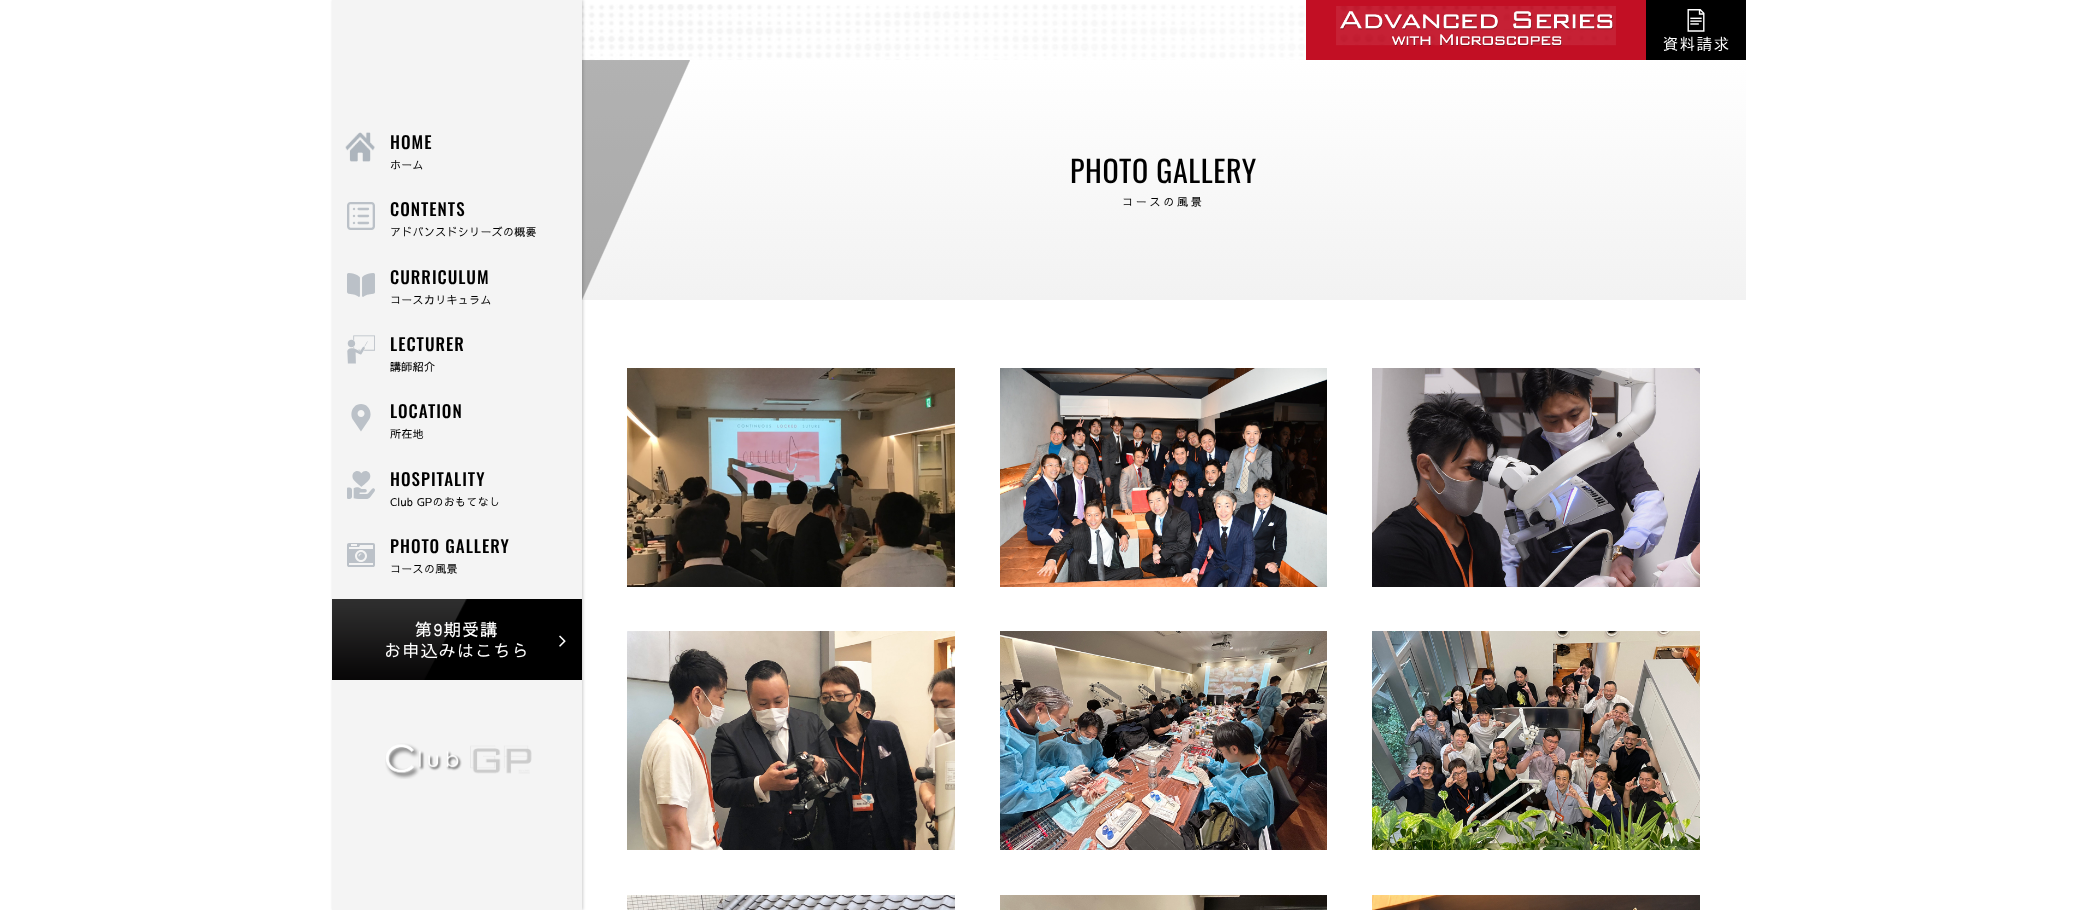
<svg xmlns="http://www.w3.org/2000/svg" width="2078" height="910">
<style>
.a{font:500 17px Oswald;letter-spacing:1px;fill:#000}
.b{font:11px Sawarabi Gothic;letter-spacing:0.3px;fill:#000}
.c{font:17px Sawarabi Gothic;letter-spacing:1.25px;fill:#fff}
.d{font:30px Oswald;letter-spacing:0.6px;fill:#000}
.e{font:11px Sawarabi Gothic;letter-spacing:2.75px;fill:#000}
</style>
<rect width="100%" height="100%" fill="#fff"/>
<image href="11.png" x="582" y="4" width="724" height="56"/>
<image href="14.png" x="582" y="60" width="1164" height="240"/>
<path fill="#00000033" filter="blur(1.5px)" d="M333 0h250v910H333z"/>
<path fill="#f4f4f4" d="M332 0h250v910H332z"/>
<image href="1.png" x="345" y="132" width="30" height="30"/>
<image href="2.png" x="347" y="202" width="28" height="28"/>
<image href="3.png" x="347" y="273" width="28" height="24"/>
<image href="4.png" x="347" y="335" width="28" height="29"/>
<image href="5.png" x="351" y="404" width="20" height="28"/>
<image href="6.png" x="347" y="471" width="28" height="28"/>
<image href="7.png" x="347" y="543" width="28" height="24"/>
<image href="8.png" x="332" y="599" width="250" height="81"/>
<image href="9.png" x="559" y="635" width="7" height="12"/>
<image href="10.png" x="385" y="743" width="147" height="36"/>
<path fill="#c20f24" d="M1306 0h340v60H1306z"/>
<image href="12.png" x="1336" y="6" width="280" height="40"/>
<path fill="#000" d="M1646 0h100v60H1646z"/>
<image href="13.png" x="1663" y="9" width="66" height="42"/>
<image href="15.png" x="627" y="368" width="328" height="219"/>
<image href="16.png" x="1000" y="368" width="327" height="219"/>
<image href="17.png" x="1372" y="368" width="328" height="219"/>
<image href="18.png" x="627" y="631" width="328" height="219"/>
<image href="19.png" x="1000" y="631" width="327" height="219"/>
<image href="20.png" x="1372" y="631" width="328" height="219"/>
<image href="21.png" x="627" y="895" width="328" height="15"/>
<image href="22.png" x="1000" y="895" width="327" height="15"/>
<image href="23.png" x="1372" y="895" width="328" height="15"/>
<text class="a" x="390" y="149">HOME</text>
<text class="b" x="390" y="169">ホーム</text>
<text class="a" x="390" y="216">CONTENTS</text>
<text class="b" x="390" y="236">アドバンスドシリーズの概要</text>
<text class="a" x="390" y="284">CURRICULUM</text>
<text class="b" x="390" y="304">コースカリキュラム</text>
<text class="a" x="390" y="351">LECTURER</text>
<text class="b" x="390" y="371">講師紹介</text>
<text class="a" x="390" y="418">LOCATION</text>
<text class="b" x="390" y="438">所在地</text>
<text class="a" x="390" y="486">HOSPITALITY</text>
<text class="b" x="390" y="506">Club GPのおもてなし</text>
<text class="a" x="390" y="553">PHOTO GALLERY</text>
<text class="b" x="390" y="573">コースの風景</text>
<text class="c" x="415" y="636">第9期受講</text>
<text class="c" x="384" y="657">お申込みはこちら</text>
<text class="d" x="1070" y="183">PHOTO GALLERY</text>
<text class="e" x="1122" y="206">コースの風景</text>
</svg>
